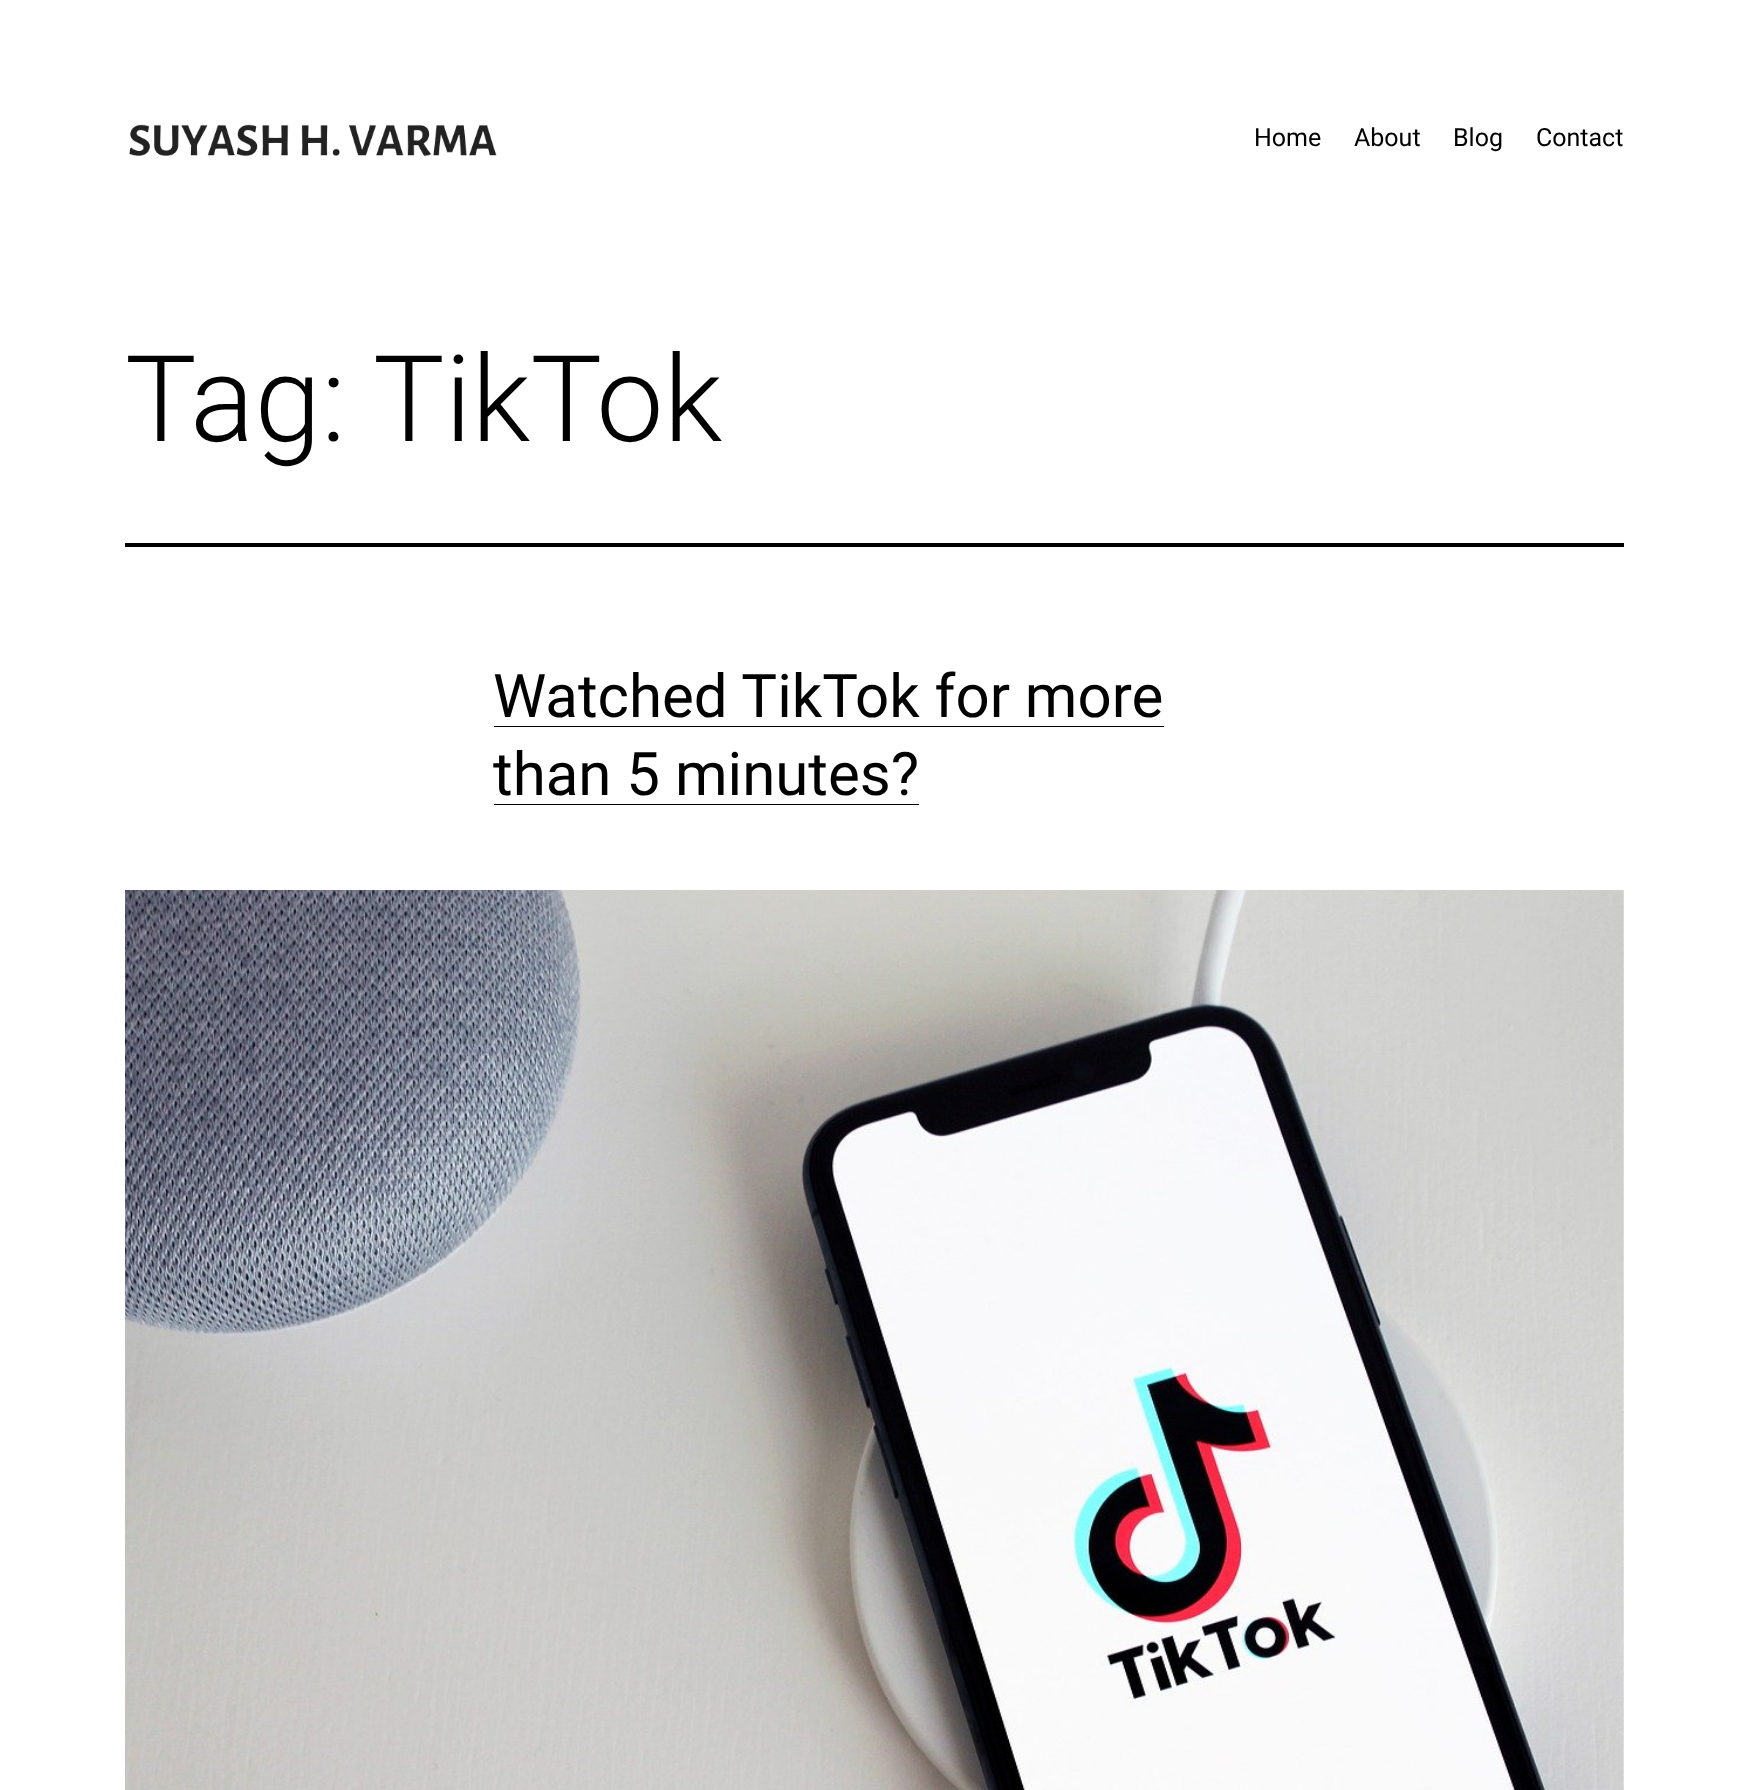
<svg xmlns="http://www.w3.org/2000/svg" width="1748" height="1790">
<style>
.a{font:25px Roboto;fill:#000}
.b{font:300 120px Roboto;fill:#000}
.c{font:60px Roboto;fill:#000}
</style>
<rect width="100%" height="100%" fill="#fff"/>
<image href="1.png" x="129" y="124" width="368" height="32"/>
<path fill="#000" d="M125 543h1499v4H125z"/>
<path fill="#000" d="M494 726h670v1H494z"/>
<path fill="#000" d="M494 804h425v1H494z"/>
<image href="2.png" x="125" y="890" width="1499" height="900"/>
<text class="a" x="1254" y="146">Home</text>
<text class="a" x="1354" y="146">About</text>
<text class="a" x="1453" y="146">Blog</text>
<text class="a" x="1536" y="146">Contact</text>
<text class="b" x="125" y="441">Tag:</text>
<text class="b" x="373" y="441">TikTok</text>
<text class="c" x="493" y="717">Watched TikTok for more</text>
<text class="c" x="493" y="795">than 5 minutes?</text>
</svg>
